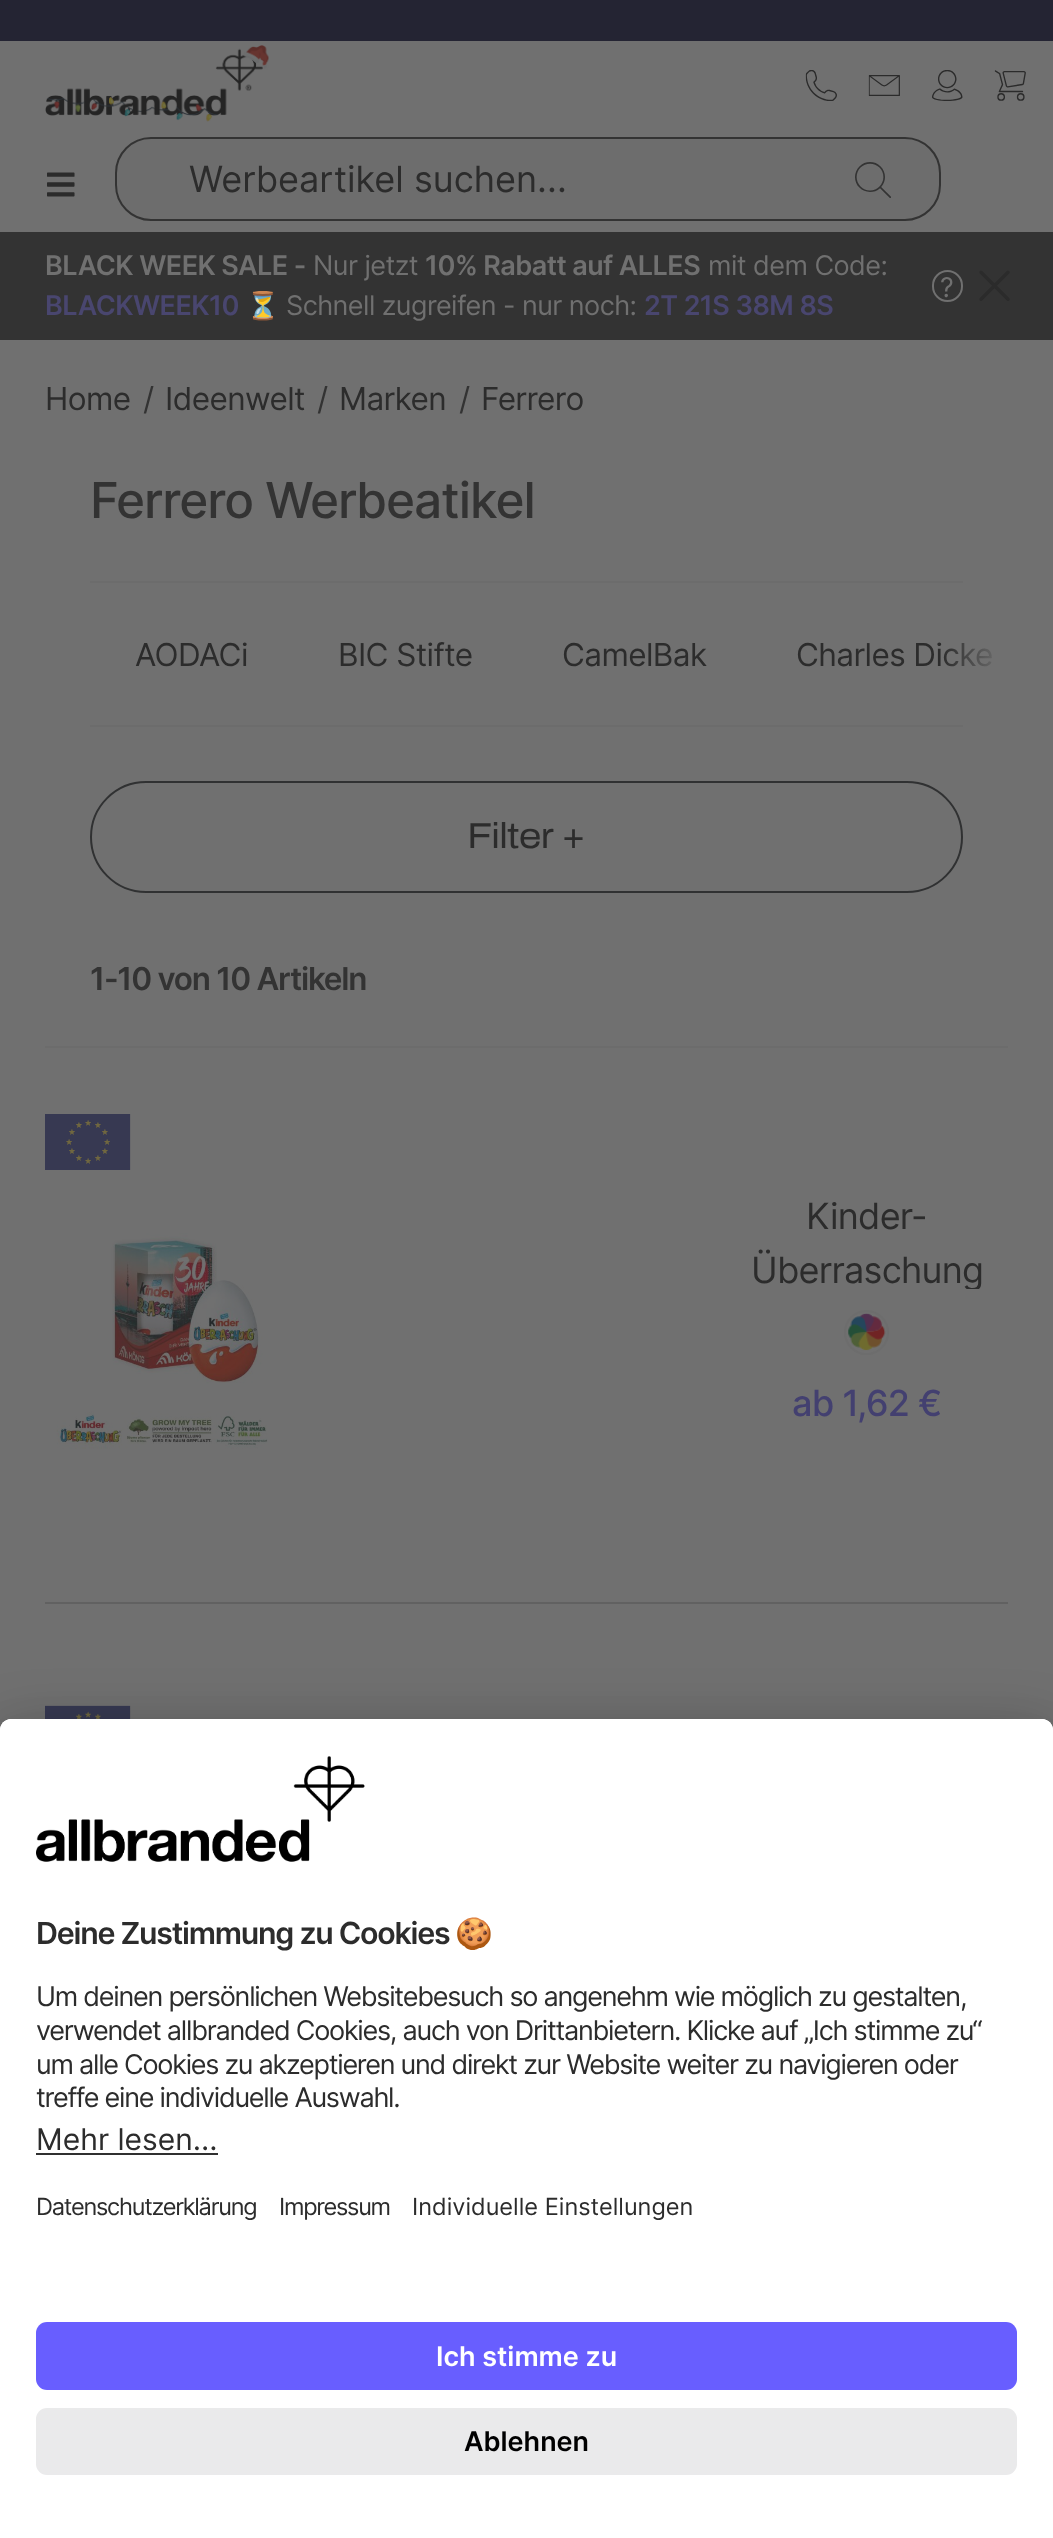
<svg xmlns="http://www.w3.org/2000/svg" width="1053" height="2538">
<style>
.a{font:36px Inter;fill:#2c2c2c}
.b{font:600 27px Inter;letter-spacing:-0.55px;fill:#707070}
.c{font:27px Inter;letter-spacing:-0.55px;fill:#707070}
.d{font:600 27px Inter;letter-spacing:-0.55px;fill:#49466f}
.e{font:27px Noto Color Emoji;letter-spacing:-0.55px;fill:#707070}
.f{font:31.5px Inter;letter-spacing:-0.6px;fill:#2c2c2c}
.g{font:31.5px Inter;letter-spacing:-0.6px;fill:#333}
.h{font:500 49.5px Inter;letter-spacing:-1px;fill:#333}
.i{font:36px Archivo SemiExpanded;letter-spacing:-0.75px;fill:#2c2c2c}
.j{font:600 31.5px Inter;letter-spacing:-1.25px;fill:#333}
.k{font:36px Inter;letter-spacing:-0.75px;fill:#2c2c2c}
.l{font:500 36px Inter;letter-spacing:-0.75px;fill:#434070}
.m{font:600 30.4px Inter;letter-spacing:-1.25px;fill:#2c2c2c}
.n{font:bold 30.4px Noto Color Emoji;letter-spacing:-1.25px;fill:#2c2c2c}
.o{font:27px Inter;letter-spacing:-1.25px;fill:#2c2c2c}
.p{font:30px Inter;fill:#2c2c2c}
.q{font:23.6px Inter;letter-spacing:-1.25px;fill:#2c2c2c}
.r{font:23.6px Inter;fill:#2c2c2c}
.s{font:600 27px Inter;fill:#fff}
.t{font:600 27px Inter;fill:#000}
</style>
<defs>
<linearGradient id="g1" gradientUnits="userSpaceOnUse" x1="941" y1="655" x2="1008" y2="655"><stop offset="0" stop-color="#707070" stop-opacity="0"/><stop offset="0.95" stop-color="#707070"/><stop offset="1" stop-color="#707070"/></linearGradient>
<clipPath id="clip1"><path d="M752 1188h231v101H752z"/></clipPath>
</defs>
<rect width="100%" height="100%" fill="#707070"/>
<path fill="#242433" d="M0 0h1053v41H0z"/>
<image href="1.png" x="45" y="45" width="224" height="77"/>
<image href="2.png" x="805" y="70" width="32" height="31"/>
<image href="3.png" x="868" y="75" width="32" height="21"/>
<image href="4.png" x="932" y="70" width="31" height="31"/>
<image href="5.png" x="994" y="70" width="32" height="31"/>
<image href="6.png" x="47" y="172" width="28" height="25"/>
<rect fill="#6d6d6d" stroke="#333" stroke-width="2" x="116" y="138" width="824" height="82" rx="35"/>
<image href="7.png" x="855" y="162" width="36" height="36"/>
<path fill="#333" d="M0 232h1053v108H0z"/>
<rect fill="none" stroke="#707070" stroke-width="2" x="933" y="271" width="29" height="30" rx="14.5"/>
<image href="8.png" x="979" y="270" width="31" height="31"/>
<path fill="#6c6c6c" d="M90 581h873v2H90z"/>
<path fill="#6c6c6c" d="M90 725h873v2H90z"/>
<rect fill="none" stroke="#303132" stroke-width="2" x="91" y="782" width="871" height="110" rx="55"/>
<path fill="#6c6c6c" d="M45 1046h963v2H45z"/>
<image href="9.png" x="45" y="1114" width="86" height="56"/>
<image href="10.png" x="56" y="1233" width="212" height="216"/>
<circle fill="none" stroke="#6d6d6d" stroke-width="2" cx="866.5" cy="1332.5" r="21.5"/>
<image href="11.png" x="848" y="1312" width="38" height="39"/>
<path fill="#616161" d="M45 1602h963v2H45z"/>
<image href="12.png" x="45" y="1705" width="86" height="14"/>
<rect fill="#0000004d" filter="blur(31.5px)" y="1764" width="1053" height="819" rx="11"/>
<rect fill="#00000038" filter="blur(29px)" y="1730" width="1053" height="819" rx="11"/>
<path fill="#fff" d="M11 1719h1031c6 0 11 5 11 11v808h-1053v-808c0-6 5-11 11-11z"/>
<path fill="#fff" d="M11 1719h1031c6 0 11 5 11 11v565h-1053v-565c0-6 5-11 11-11z"/>
<image href="13.png" x="36" y="1756" width="329" height="106"/>
<path fill="#303030" d="M36 2153h182v2H36z"/>
<rect fill="#685eff" x="36" y="2322" width="981" height="68" rx="11"/>
<rect fill="#eaeaeb" x="36" y="2408" width="981" height="67" rx="11"/>
<text class="a" x="189" y="192">Werbeartikel suchen...</text>
<text class="b" x="45" y="275">BLACK WEEK SALE -</text>
<text class="c" x="313" y="275">Nur jetzt</text>
<text class="b" x="425" y="275">10% Rabatt auf ALLES</text>
<text class="c" x="708" y="275">mit dem Code:</text>
<text class="d" x="45" y="315">BLACKWEEK10</text>
<text class="e" x="246" y="315">⏳</text>
<text class="c" x="286" y="315">Schnell zugreifen - nur noch:</text>
<text class="d" x="644" y="315">2T 21S 38M 8S</text>
<text class="c" x="940" y="297">?</text>
<text class="f" x="45" y="410">Home</text>
<text class="g" x="143" y="410">/</text>
<text class="f" x="165" y="410">Ideenwelt</text>
<text class="g" x="317" y="410">/</text>
<text class="f" x="339" y="410">Marken</text>
<text class="g" x="459" y="410">/</text>
<text class="f" x="481" y="410">Ferrero</text>
<text class="h" x="90" y="518">Ferrero Werbeatikel</text>
<text class="f" x="135" y="666">AODACi</text>
<text class="f" x="338" y="666">BIC Stifte</text>
<text class="f" x="562" y="666">CamelBak</text>
<text class="f" x="796" y="666">Charles Dicke</text>
<path fill="url(#g1)" d="M944 643h48v24H944z"/>
<text class="i" x="467" y="848">Filter +</text>
<text class="j" x="90" y="990">1-10 von 10 Artikeln</text>
<text class="k" x="806" y="1229">Kinder-</text>
<g clip-path="url(#clip1)">
<text class="k" x="751" y="1283">Überraschung</text>
</g>
<text class="l" x="792" y="1416">ab 1,62 €</text>
<text class="m" x="36" y="1944">Deine Zustimmung zu Cookies</text>
<text class="n" x="455" y="1944">🍪</text>
<text class="o" x="36" y="2006">Um deinen persönlichen Websitebesuch so angenehm wie möglich zu gestalten,</text>
<text class="o" x="36" y="2040">verwendet allbranded Cookies, auch von Drittanbietern. Klicke auf „Ich stimme zu“</text>
<text class="o" x="36" y="2074">um alle Cookies zu akzeptieren und direkt zur Website weiter zu navigieren oder</text>
<text class="o" x="36" y="2107">treffe eine individuelle Auswahl.</text>
<text class="p" x="36" y="2150">Mehr lesen...</text>
<text class="q" x="36" y="2215">Datenschutzerklärung</text>
<text class="q" x="279" y="2215">Impressum</text>
<text class="r" x="412" y="2215">Individuelle Einstellungen</text>
<text class="s" x="436" y="2366">Ich stimme zu</text>
<text class="t" x="464" y="2451">Ablehnen</text>
</svg>
